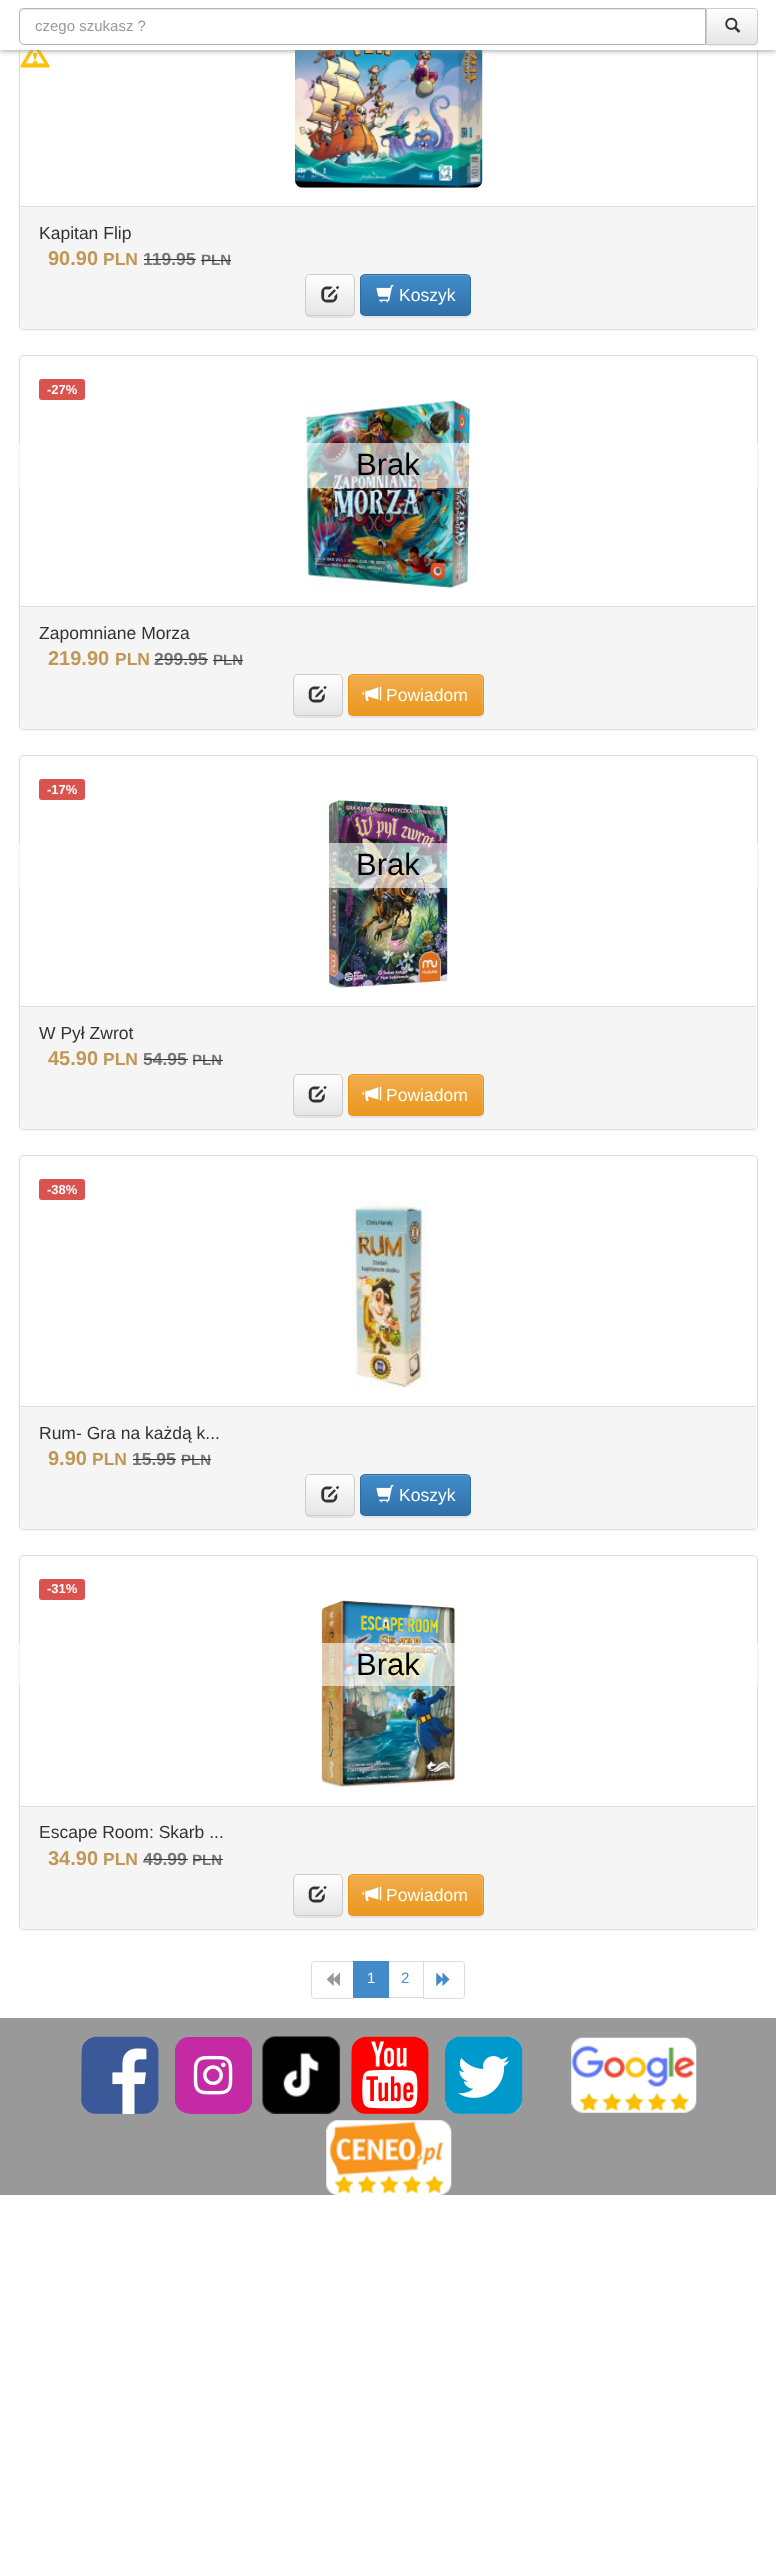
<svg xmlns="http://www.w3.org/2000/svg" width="776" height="2570">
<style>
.a{font:15px Liberation Sans;fill:#999}
.b{font:17.5px Liberation Sans;fill:#333}
.c{font:bold 20px Liberation Sans;fill:#c09853}
.d{font:bold 17.5px Liberation Sans;fill:#c09853}
.e{font:bold 17.5px Liberation Sans;fill:#777}
.f{font:bold 15px Liberation Sans;fill:#777}
.g{font:17.5px Liberation Sans;fill:#fff}
.h{font:bold 13px Liberation Sans;fill:#fff}
.i{font:31px Liberation Sans;fill:#000}
.j{font:15px Liberation Sans;fill:#fff}
.k{font:15px Liberation Sans;fill:#428bca}
</style>
<defs>
<clipPath id="clip1"><path d="M706 8h48c2 0 4 2 4 4v29c0 2-2 4-4 4h-48z"/></clipPath>
<linearGradient id="g1" gradientUnits="userSpaceOnUse" x1="732" y1="9" x2="732" y2="44"><stop offset="0" stop-color="#fff"/><stop offset="1" stop-color="#e6e6e6"/></linearGradient>
<clipPath id="clip2"><rect x="305" y="274" width="50" height="42" rx="5"/></clipPath>
<linearGradient id="g2" gradientUnits="userSpaceOnUse" x1="330" y1="275" x2="330" y2="315"><stop offset="0" stop-color="#fff"/><stop offset="1" stop-color="#e6e6e6"/></linearGradient>
<clipPath id="clip3"><rect x="360" y="274" width="111" height="42" rx="5"/></clipPath>
<linearGradient id="g3" gradientUnits="userSpaceOnUse" x1="416" y1="275" x2="416" y2="315"><stop offset="0" stop-color="#428bca"/><stop offset="1" stop-color="#3071a9"/></linearGradient>
<clipPath id="clip4"><rect x="293" y="674" width="50" height="42" rx="5"/></clipPath>
<linearGradient id="g4" gradientUnits="userSpaceOnUse" x1="318" y1="675" x2="318" y2="715"><stop offset="0" stop-color="#fff"/><stop offset="1" stop-color="#e6e6e6"/></linearGradient>
<clipPath id="clip5"><rect x="348" y="674" width="136" height="42" rx="5"/></clipPath>
<linearGradient id="g5" gradientUnits="userSpaceOnUse" x1="416" y1="675" x2="416" y2="715"><stop offset="0" stop-color="#f0ad4e"/><stop offset="1" stop-color="#ec971f"/></linearGradient>
<clipPath id="clip6"><rect x="293" y="1074" width="50" height="42" rx="5"/></clipPath>
<linearGradient id="g6" gradientUnits="userSpaceOnUse" x1="318" y1="1075" x2="318" y2="1115"><stop offset="0" stop-color="#fff"/><stop offset="1" stop-color="#e6e6e6"/></linearGradient>
<clipPath id="clip7"><rect x="348" y="1074" width="136" height="42" rx="5"/></clipPath>
<linearGradient id="g7" gradientUnits="userSpaceOnUse" x1="416" y1="1075" x2="416" y2="1115"><stop offset="0" stop-color="#f0ad4e"/><stop offset="1" stop-color="#ec971f"/></linearGradient>
<clipPath id="clip8"><rect x="305" y="1474" width="50" height="42" rx="5"/></clipPath>
<linearGradient id="g8" gradientUnits="userSpaceOnUse" x1="330" y1="1475" x2="330" y2="1515"><stop offset="0" stop-color="#fff"/><stop offset="1" stop-color="#e6e6e6"/></linearGradient>
<clipPath id="clip9"><rect x="360" y="1474" width="111" height="42" rx="5"/></clipPath>
<linearGradient id="g9" gradientUnits="userSpaceOnUse" x1="416" y1="1475" x2="416" y2="1515"><stop offset="0" stop-color="#428bca"/><stop offset="1" stop-color="#3071a9"/></linearGradient>
<clipPath id="clip10"><rect x="293" y="1874" width="50" height="42" rx="5"/></clipPath>
<linearGradient id="g10" gradientUnits="userSpaceOnUse" x1="318" y1="1875" x2="318" y2="1915"><stop offset="0" stop-color="#fff"/><stop offset="1" stop-color="#e6e6e6"/></linearGradient>
<clipPath id="clip11"><rect x="348" y="1874" width="136" height="42" rx="5"/></clipPath>
<linearGradient id="g11" gradientUnits="userSpaceOnUse" x1="416" y1="1875" x2="416" y2="1915"><stop offset="0" stop-color="#f0ad4e"/><stop offset="1" stop-color="#ec971f"/></linearGradient>
</defs>
<rect width="100%" height="100%" fill="#fff"/>
<rect fill="#0000000d" filter="blur(1px)" x="19" y="-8" width="739" height="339" rx="5"/>
<rect fill="#fff" stroke="#ddd" x="19.5" y="-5.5" width="738" height="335" rx="4.5"/>
<image href="2.png" x="20" y="50" width="30" height="18"/>
<image href="3.png" x="295" y="50" width="188" height="138"/>
<path fill="#888" filter="blur(3px)" d="M0 0h776v50H0z"/>
<path fill="#fff" d="M0 0h776v50H0z"/>
<rect fill="none" stroke="#d6d6d6" x="19.5" y="8.5" width="235" height="31" rx="2"/>
<path fill="#fff" d="M24 8h682v37h-682c-3 0-5-2-5-5v-27c0-3 2-5 5-5z"/>
<path fill="#ececec" d="M24 10h681v-1h-681c-2 0-4 2-4 4v1c0-2 2-4 4-4z"/>
<path fill="none" stroke="#b4b4b4" d="M24 8.5h681.5v36h-681.5c-2.5 0-4.5-2-4.5-4.5v-27c0-2.5 2-4.5 4.5-4.5z"/>
<rect fill="#00000012" filter="blur(0.5px)" x="706" y="9" width="52" height="37" rx="4"/>
<g clip-path="url(#clip1)">
<path fill="url(#g1)" d="M707 9h51v35H707z"/>
</g>
<path fill="none" stroke="#ccc" d="M706.5 8.5h47.5c2 0 3.5 1.5 3.5 3.5v29c0 2-1.5 3.5-3.5 3.5h-47.5z"/>
<image href="1.png" x="725" y="17" width="16" height="16"/>
<path fill="#f5f5f5" d="M20 206h736v119c0 2-2 4-4 4h-728c-2 0-4-2-4-4z"/>
<path fill="#ddd" d="M20 206h736v1H20z"/>
<rect fill="#00000012" filter="blur(0.5px)" x="305" y="275" width="50" height="43" rx="5"/>
<g clip-path="url(#clip2)">
<path fill="url(#g2)" d="M305 275h50v40H305z"/>
</g>
<rect fill="none" stroke="#ccc" x="305.5" y="274.5" width="49" height="41" rx="4.5"/>
<image href="4.png" x="321" y="286" width="18" height="17"/>
<rect fill="#00000012" filter="blur(0.5px)" x="360" y="275" width="111" height="43" rx="5"/>
<g clip-path="url(#clip3)">
<path fill="url(#g3)" d="M360 275h111v40H360z"/>
</g>
<path fill="#5e9cd2" d="M365 276h101c2 0 4 2 4 4c0-9-17-5-21-5h-67c-4 0-21-4-21 5c0-2 2-4 4-4z"/>
<rect fill="none" stroke="#2d6ca2" x="360.5" y="274.5" width="110" height="41" rx="4.5"/>
<image href="5.png" x="376" y="285" width="18" height="18"/>
<rect fill="#0000000d" filter="blur(1px)" x="19" y="356" width="739" height="375" rx="5"/>
<rect fill="#fff" stroke="#ddd" x="19.5" y="355.5" width="738" height="374" rx="4.5"/>
<rect fill="#d9534f" x="39" y="379" width="46" height="21" rx="3"/>
<image href="6.png" x="306" y="400" width="164" height="188"/>
<path fill="#f5f5f5" d="M20 606h736v119c0 2-2 4-4 4h-728c-2 0-4-2-4-4z"/>
<path fill="#ddd" d="M20 606h736v1H20z"/>
<path fill="#ffffff99" d="M19 443h739v45H19z"/>
<rect fill="#00000012" filter="blur(0.5px)" x="293" y="675" width="50" height="43" rx="5"/>
<g clip-path="url(#clip4)">
<path fill="url(#g4)" d="M293 675h50v40H293z"/>
</g>
<rect fill="none" stroke="#ccc" x="293.5" y="674.5" width="49" height="41" rx="4.5"/>
<image href="7.png" x="308" y="686" width="19" height="17"/>
<rect fill="#00000012" filter="blur(0.5px)" x="348" y="675" width="136" height="43" rx="5"/>
<g clip-path="url(#clip5)">
<path fill="url(#g5)" d="M348 675h136v40H348z"/>
</g>
<path fill="#ffffff26" d="M352 676h106c26 0 24-5 24 15v23c1-1 1-2 1-3v-32c0-2-2-4-4-4h-126c-2 0-4 2-4 4v1c0-2 1-4 3-4z"/>
<rect fill="none" stroke="#eb9316" x="348.5" y="674.5" width="135" height="41" rx="4.5"/>
<image href="8.png" x="362" y="686" width="20" height="16"/>
<rect fill="#0000000d" filter="blur(1px)" x="19" y="756" width="739" height="375" rx="5"/>
<rect fill="#fff" stroke="#ddd" x="19.5" y="755.5" width="738" height="374" rx="4.5"/>
<rect fill="#d9534f" x="39" y="779" width="46" height="21" rx="3"/>
<image href="9.png" x="328" y="800" width="120" height="188"/>
<path fill="#f5f5f5" d="M20 1006h736v119c0 2-2 4-4 4h-728c-2 0-4-2-4-4z"/>
<path fill="#ddd" d="M20 1006h736v1H20z"/>
<path fill="#ffffff99" d="M19 843h739v45H19z"/>
<rect fill="#00000012" filter="blur(0.5px)" x="293" y="1075" width="50" height="43" rx="5"/>
<g clip-path="url(#clip6)">
<path fill="url(#g6)" d="M293 1075h50v40H293z"/>
</g>
<rect fill="none" stroke="#ccc" x="293.5" y="1074.5" width="49" height="41" rx="4.5"/>
<image href="7.png" x="308" y="1086" width="19" height="17"/>
<rect fill="#00000012" filter="blur(0.5px)" x="348" y="1075" width="136" height="43" rx="5"/>
<g clip-path="url(#clip7)">
<path fill="url(#g7)" d="M348 1075h136v40H348z"/>
</g>
<path fill="#ffffff26" d="M352 1076h106c26 0 24-5 24 15v23c1-1 1-2 1-3v-32c0-2-2-4-4-4h-126c-2 0-4 2-4 4v1c0-2 1-4 3-4z"/>
<rect fill="none" stroke="#eb9316" x="348.5" y="1074.5" width="135" height="41" rx="4.5"/>
<image href="8.png" x="362" y="1086" width="20" height="16"/>
<rect fill="#0000000d" filter="blur(1px)" x="19" y="1156" width="739" height="375" rx="5"/>
<rect fill="#fff" stroke="#ddd" x="19.5" y="1155.5" width="738" height="374" rx="4.5"/>
<rect fill="#d9534f" x="39" y="1179" width="46" height="21" rx="3"/>
<image href="10.png" x="351" y="1200" width="76" height="188"/>
<path fill="#f5f5f5" d="M20 1406h736v119c0 2-2 4-4 4h-728c-2 0-4-2-4-4z"/>
<path fill="#ddd" d="M20 1406h736v1H20z"/>
<rect fill="#00000012" filter="blur(0.5px)" x="305" y="1475" width="50" height="43" rx="5"/>
<g clip-path="url(#clip8)">
<path fill="url(#g8)" d="M305 1475h50v40H305z"/>
</g>
<rect fill="none" stroke="#ccc" x="305.5" y="1474.5" width="49" height="41" rx="4.5"/>
<image href="4.png" x="321" y="1486" width="18" height="17"/>
<rect fill="#00000012" filter="blur(0.5px)" x="360" y="1475" width="111" height="43" rx="5"/>
<g clip-path="url(#clip9)">
<path fill="url(#g9)" d="M360 1475h111v40H360z"/>
</g>
<path fill="#5e9cd2" d="M365 1476h101c2 0 4 2 4 4c0-9-17-5-21-5h-67c-4 0-21-4-21 5c0-2 2-4 4-4z"/>
<rect fill="none" stroke="#2d6ca2" x="360.5" y="1474.5" width="110" height="41" rx="4.5"/>
<image href="5.png" x="376" y="1485" width="18" height="18"/>
<rect fill="#0000000d" filter="blur(1px)" x="19" y="1556" width="739" height="375" rx="5"/>
<rect fill="#fff" stroke="#ddd" x="19.5" y="1555.5" width="738" height="374" rx="4.5"/>
<rect fill="#d9534f" x="39" y="1579" width="46" height="21" rx="3"/>
<image href="11.png" x="321" y="1600" width="134" height="187"/>
<path fill="#f5f5f5" d="M20 1806h736v119c0 2-2 4-4 4h-728c-2 0-4-2-4-4z"/>
<path fill="#ddd" d="M20 1806h736v1H20z"/>
<path fill="#ffffff99" d="M19 1643h739v43H19z"/>
<rect fill="#00000012" filter="blur(0.5px)" x="293" y="1875" width="50" height="43" rx="5"/>
<g clip-path="url(#clip10)">
<path fill="url(#g10)" d="M293 1875h50v40H293z"/>
</g>
<rect fill="none" stroke="#ccc" x="293.5" y="1874.5" width="49" height="41" rx="4.5"/>
<image href="7.png" x="308" y="1886" width="19" height="17"/>
<rect fill="#00000012" filter="blur(0.5px)" x="348" y="1875" width="136" height="43" rx="5"/>
<g clip-path="url(#clip11)">
<path fill="url(#g11)" d="M348 1875h136v40H348z"/>
</g>
<path fill="#ffffff26" d="M352 1876h106c26 0 24-5 24 15v23c1-1 1-2 1-3v-32c0-2-2-4-4-4h-126c-2 0-4 2-4 4v1c0-2 1-4 3-4z"/>
<rect fill="none" stroke="#eb9316" x="348.5" y="1874.5" width="135" height="41" rx="4.5"/>
<image href="8.png" x="362" y="1886" width="20" height="16"/>
<path fill="none" stroke="#ddd" d="M315 1961.5h38.5v37h-38.5c-2 0-3.5-1.5-3.5-3.5v-30c0-2 1.5-3.5 3.5-3.5z"/>
<image href="12.png" x="326" y="1972" width="14" height="14"/>
<path fill="none" stroke="#ddd" d="M388.5 1961.5h35v36H388.5z"/>
<path fill="#428bca" d="M353 1961h36v37H353z"/>
<path fill="#fff" stroke="#ddd" d="M423.5 1961.5h37.5c2 0 3.5 1.5 3.5 3.5v30c0 2-1.5 3.5-3.5 3.5h-37.5z"/>
<image href="13.png" x="436" y="1972" width="14" height="15"/>
<path fill="#999" d="M0 2018h776v177H0z"/>
<path fill="#fff" d="M158 2051v51c-2 12-13 12-22 12h-32c-10 0-20 0-22-12l-1-51c0-6 5-13 12-14h54c6 1 11 8 11 14z"/>
<image href="14.png" x="81" y="2036" width="78" height="78"/>
<path fill="#c32aa3" d="M252 2051v51c-2 12-13 12-22 12h-32c-10 0-20 0-23-12v-51c0-6 5-13 12-14h54c6 1 11 8 11 14z"/>
<image href="15.png" x="193" y="2055" width="40" height="40"/>
<image href="16.png" x="262" y="2036" width="78" height="78"/>
<path fill="#fff" d="M428 2051v51c-2 12-13 12-22 12h-32c-10 0-20 0-22-12l-1-51c0-6 5-13 12-14h54c6 1 11 8 11 14z"/>
<image href="17.png" x="351" y="2036" width="78" height="78"/>
<path fill="#fff" d="M522 2051v51c-2 12-13 12-22 12h-33c-9 0-19 0-22-12v-51c0-6 5-13 12-14h54c6 1 11 8 11 14z"/>
<image href="18.png" x="445" y="2036" width="78" height="78"/>
<image href="19.png" x="571" y="2037" width="126" height="76"/>
<image href="20.png" x="326" y="2120" width="126" height="75"/>
<text class="a" x="35" y="31">czego szukasz ?</text>
<text class="b" x="39" y="239">Kapitan Flip</text>
<text class="c" x="48" y="265">90.90</text>
<text class="d" x="103" y="265">PLN</text>
<text class="e" x="143" y="265">119.95</text>
<path fill="#333" d="M144 259h52v1H144z"/>
<text class="f" x="201" y="265">PLN</text>
<path fill="#333" d="M201 260h30v1H201z"/>
<text class="g" x="399" y="301">Koszyk</text>
<text class="h" x="47" y="394">-27%</text>
<text class="b" x="39" y="639">Zapomniane Morza</text>
<text class="i" x="356" y="475">Brak</text>
<text class="g" x="386" y="701">Powiadom</text>
<text class="c" x="48" y="665">219.90</text>
<text class="d" x="115" y="665">PLN</text>
<text class="e" x="154" y="665">299.95</text>
<path fill="#333" d="M155 659h53v1H155z"/>
<text class="f" x="213" y="665">PLN</text>
<path fill="#333" d="M213 660h30v1H213z"/>
<text class="h" x="47" y="794">-17%</text>
<text class="b" x="39" y="1039">W Pył Zwrot</text>
<text class="i" x="356" y="875">Brak</text>
<text class="g" x="386" y="1101">Powiadom</text>
<text class="c" x="48" y="1065">45.90</text>
<text class="d" x="103" y="1065">PLN</text>
<text class="e" x="143" y="1065">54.95</text>
<path fill="#333" d="M144 1059h44v1H144z"/>
<text class="f" x="192" y="1065">PLN</text>
<path fill="#333" d="M193 1060h30v1H193z"/>
<text class="h" x="47" y="1194">-38%</text>
<text class="b" x="39" y="1439">Rum- Gra na każdą k...</text>
<text class="c" x="48" y="1465">9.90</text>
<text class="d" x="92" y="1465">PLN</text>
<text class="e" x="132" y="1465">15.95</text>
<path fill="#333" d="M133 1459h43v1H133z"/>
<text class="f" x="181" y="1465">PLN</text>
<path fill="#333" d="M181 1459h30v1H181z"/>
<text class="g" x="399" y="1501">Koszyk</text>
<text class="h" x="47" y="1593">-31%</text>
<text class="b" x="39" y="1838">Escape Room: Skarb ...</text>
<text class="i" x="356" y="1675">Brak</text>
<text class="g" x="386" y="1901">Powiadom</text>
<text class="c" x="48" y="1865">34.90</text>
<text class="d" x="103" y="1865">PLN</text>
<text class="e" x="143" y="1865">49.99</text>
<path fill="#333" d="M144 1859h44v1H144z"/>
<text class="f" x="192" y="1865">PLN</text>
<path fill="#333" d="M193 1859h30v1H193z"/>
<text class="j" x="367" y="1983">1</text>
<text class="k" x="401" y="1983">2</text>
</svg>
